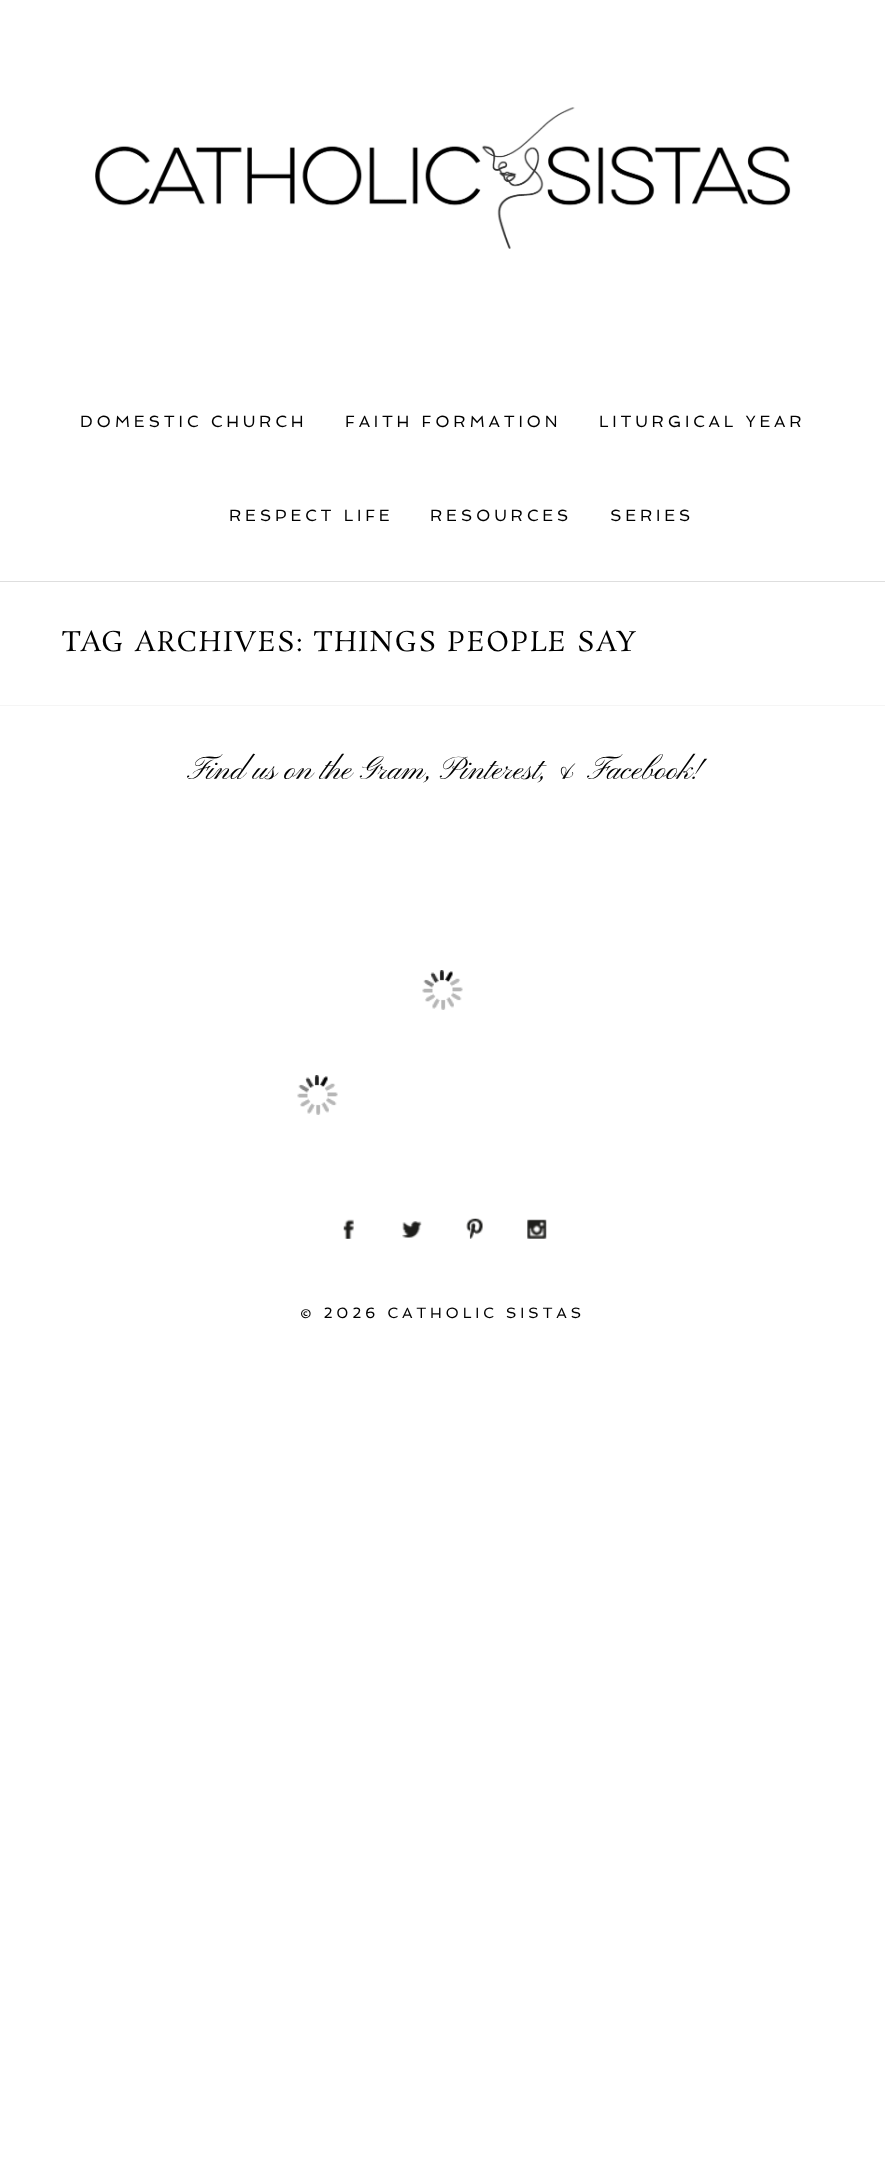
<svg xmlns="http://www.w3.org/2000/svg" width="885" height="2175">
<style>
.a{font:16.25px Spinnaker;letter-spacing:3.75px;fill:#000}
.b{font:27.5px Rosarivo;letter-spacing:1.4px;fill:#000}
.c{font:32.5px Pinyon Script;fill:#000}
.d{font:15px Spinnaker;letter-spacing:3.75px;fill:#000}
</style>
<rect width="100%" height="100%" fill="#fff"/>
<image href="1.png" x="95" y="107" width="696" height="142"/>
<path fill="#dedede" d="M0 581h885v1H0z"/>
<path fill="#f5f5f5" d="M0 705h885v1H0z"/>
<image href="2.png" x="422" y="970" width="41" height="40"/>
<image href="2.png" x="297" y="1075" width="41" height="40"/>
<image href="3.png" x="343" y="1219" width="11" height="20"/>
<image href="4.png" x="402" y="1221" width="20" height="17"/>
<image href="5.png" x="466" y="1218" width="17" height="21"/>
<image href="6.png" x="527" y="1219" width="20" height="20"/>
<text class="a" x="80" y="427">DOMESTIC CHURCH</text>
<text class="a" x="345" y="427">FAITH FORMATION</text>
<text class="a" x="599" y="427">LITURGICAL YEAR</text>
<text class="a" x="229" y="521">RESPECT LIFE</text>
<text class="a" x="430" y="521">RESOURCES</text>
<text class="a" x="610" y="521">SERIES</text>
<text class="b" x="62" y="651">TAG ARCHIVES: THINGS PEOPLE SAY</text>
<text class="c" x="187" y="779">Find us on the Gram, Pinterest, &amp; Facebook!</text>
<text class="d" x="300" y="1318">© 2026 CATHOLIC SISTAS</text>
</svg>
